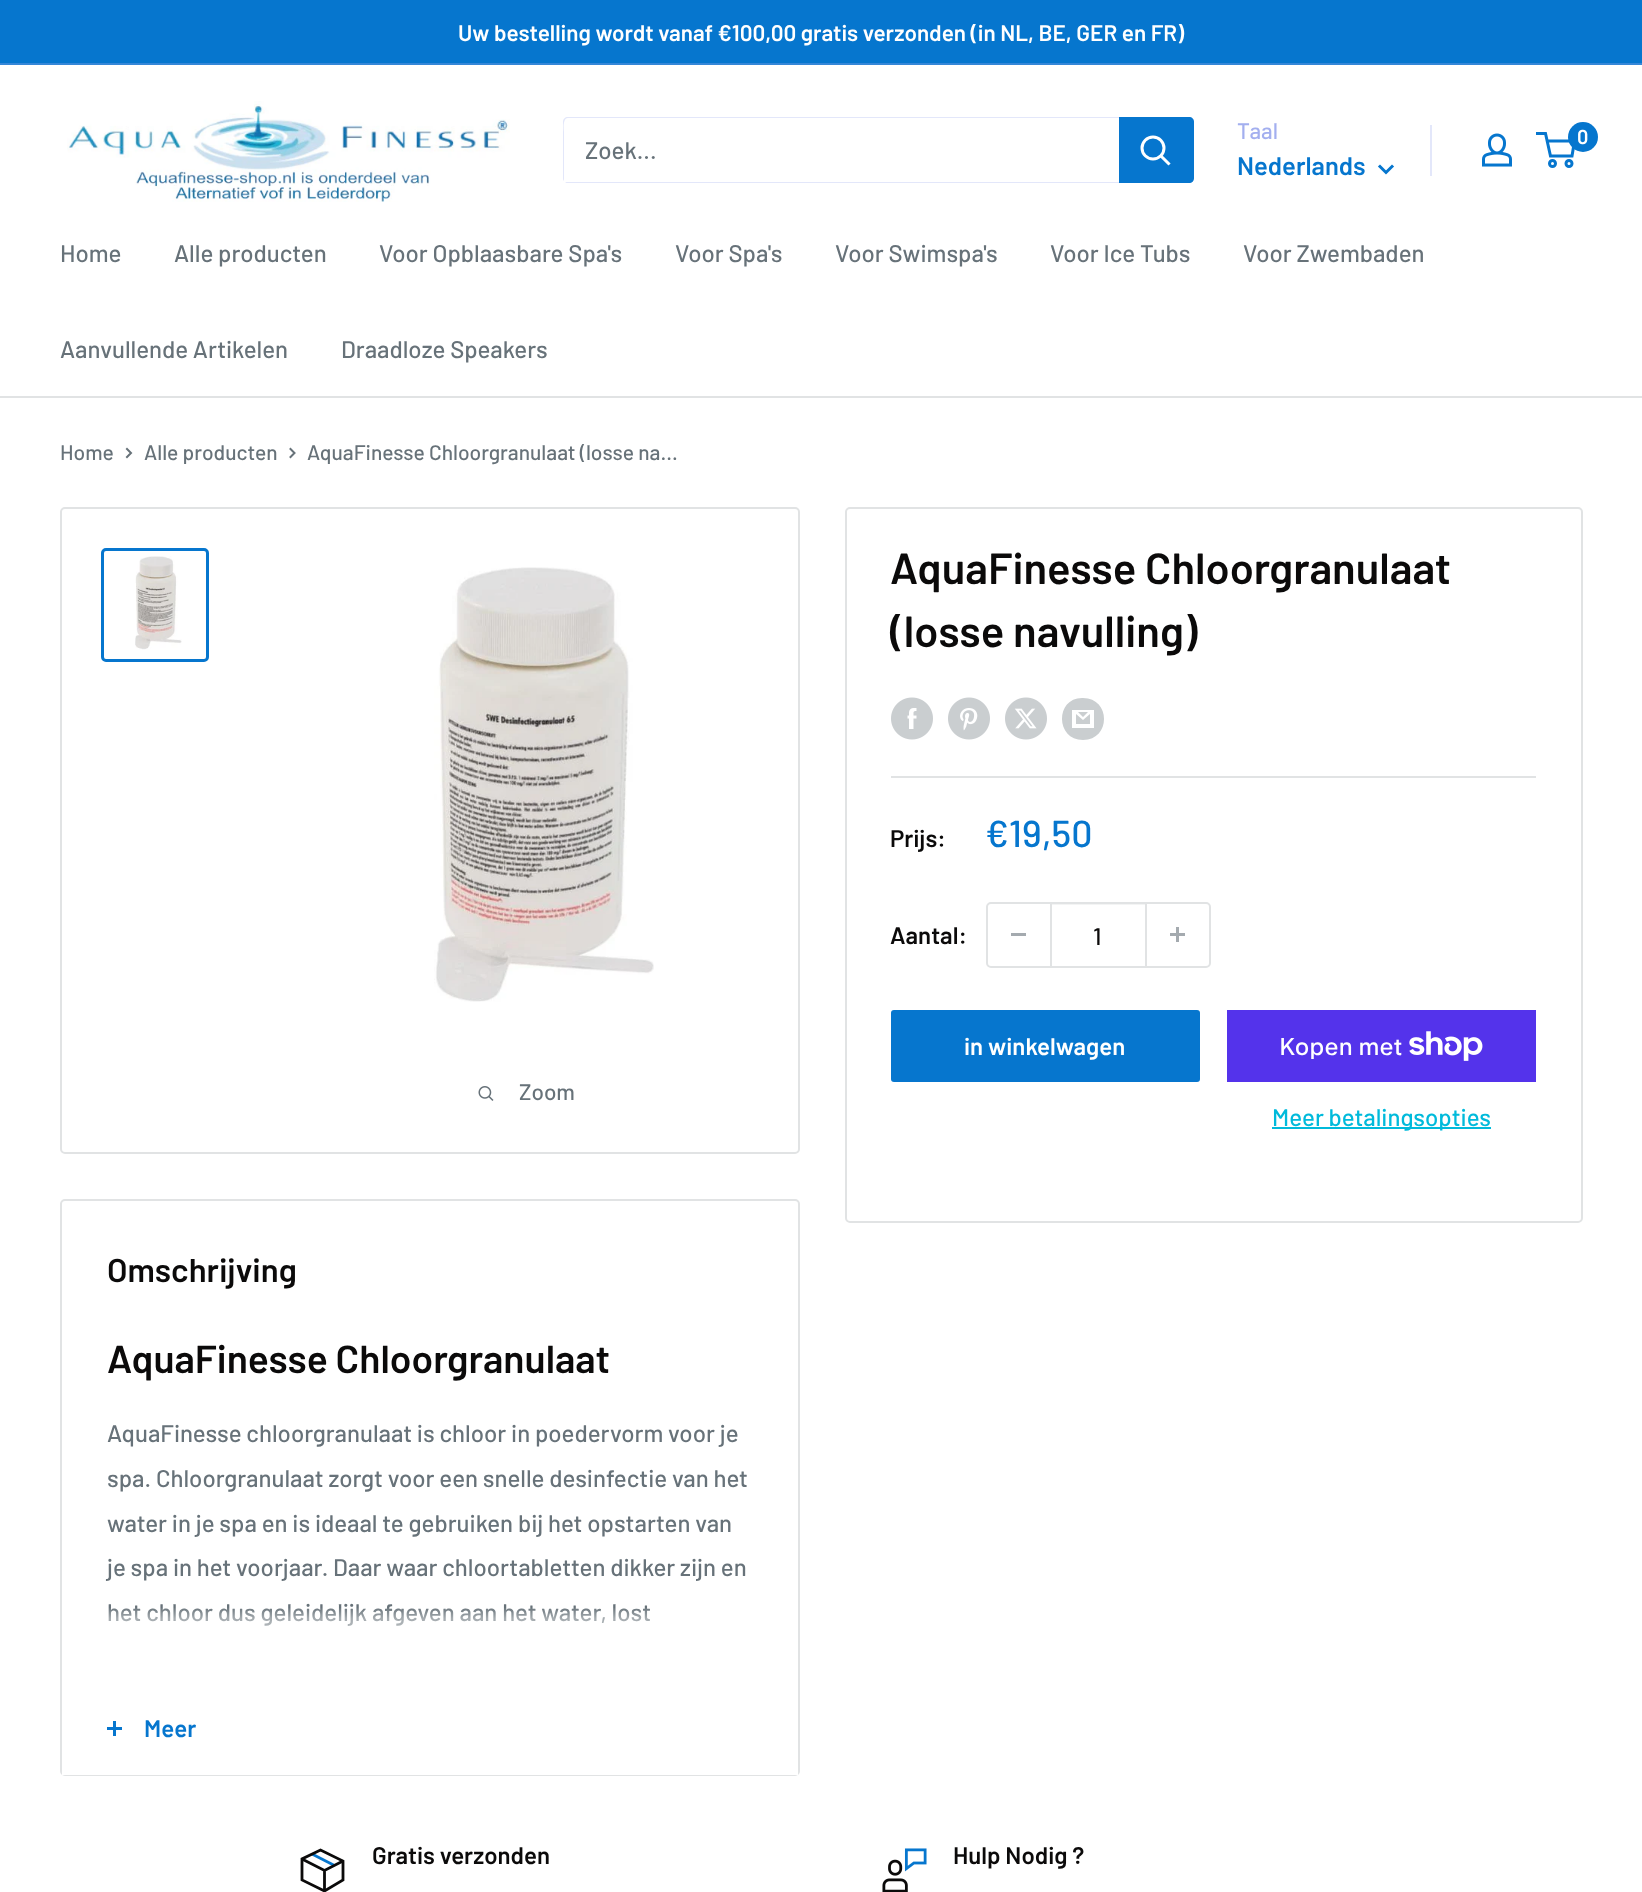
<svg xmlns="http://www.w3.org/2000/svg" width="1642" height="1892">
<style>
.a{font:600 22.5px Barlow;fill:#fff}
.b{font:500 24px Barlow;fill:#677279}
.c{font:500 22.5px Barlow;fill:#a3afef}
.d{font:600 25.5px Barlow;fill:#0676ce}
.e{font:600 20px Barlow;fill:#fff}
.f{font:500 21px Barlow;fill:#677279}
.g{font:500 22.5px Barlow;fill:#677279}
.h{font:600 43.5px Barlow;fill:#0b0a0a}
.i{font:600 24px Barlow;fill:#0b0a0a}
.j{font:500 37.5px Barlow;fill:#0676ce}
.k{font:500 24px Barlow;fill:#0b0a0a}
.l{font:600 24px Barlow;fill:#fff}
.m{font:500 24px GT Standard;fill:#fff}
.n{font:500 24px Barlow;fill:#00badb}
.o{font:600 33px Barlow;fill:#0b0a0a}
.p{font:600 39px Barlow;fill:#0b0a0a}
.q{font:600 24px Barlow;fill:#0676ce}
</style>
<defs>
<linearGradient id="g1" gradientUnits="userSpaceOnUse" x1="430" y1="1607" x2="430" y2="1682"><stop offset="0" stop-color="#fff" stop-opacity="0"/><stop offset="0.15" stop-color="#fff" stop-opacity="0.4"/><stop offset="1" stop-color="#fff"/></linearGradient>
</defs>
<rect width="100%" height="100%" fill="#fff"/>
<path fill="#0676ce" d="M0 0h1642v63H0z"/>
<path fill="#3587d8" d="M0 63h1642v2H0z"/>
<image href="1.png" x="67" y="101" width="443" height="101"/>
<path fill="#e3e7fa" d="M565 182c1 1 2 1 3 1h621c3 0 5-2 5-5v-56c0-2-1-4-3-5c1 1 1 2 1 3v57c0 2-2 5-4 5z"/>
<path fill="#e3e7fa" d="M568 118h623h2c-1 0-3-1-4-1h-621c-3 0-5 2-5 5v56c0 1 0 2 1 3v-49c0 0-2-14 4-14z"/>
<path fill="#0676ce" d="M1119 117h70c3 0 5 2 5 5v56c0 3-2 5-5 5h-70z"/>
<path fill="none" stroke="#fff" stroke-width="3" stroke-linecap="square" d="M1168.5 163.5l-7.5-7.5"/>
<circle fill="none" stroke="#fff" stroke-width="3" cx="1153" cy="148" r="11"/>
<path fill="none" stroke="#0676ce" stroke-width="3" stroke-linecap="square" d="M1392 166.5l-6 6l-6-6"/>
<path fill="#e3e7fa" d="M1430 125h2v51H1430z"/>
<image href="2.png" x="1482" y="133" width="30" height="34"/>
<circle fill="none" stroke="#0676ce" stroke-width="3" cx="1552.5" cy="163.5" r="3"/>
<circle fill="none" stroke="#0676ce" stroke-width="3" cx="1569" cy="163.5" r="3"/>
<path fill="none" stroke="#0676ce" stroke-width="3" d="M1547 141h27.5l-2.5 15h-21.5l-5-22.5h-9.5"/>
<circle fill="#0676ce" cx="1583" cy="137" r="15"/>
<path fill="#e1e3e4" d="M0 396h1642v2H0z"/>
<path fill="none" stroke="#677279" stroke-width="2" stroke-linecap="square" d="M127 449l4 4l-4 4"/>
<path fill="none" stroke="#677279" stroke-width="2" stroke-linecap="square" d="M290.5 449l4 4l-4 4"/>
<rect fill="none" stroke="#e1e3e4" stroke-width="2" x="61" y="508" width="738" height="645" rx="4"/>
<rect fill="none" stroke="#0676ce" stroke-width="3" x="102.5" y="549.5" width="105" height="111" rx="3.5"/>
<image href="3.png" x="135" y="556" width="47" height="94"/>
<image href="4.png" x="434" y="567" width="220" height="435"/>
<image href="5.png" x="478" y="1086" width="16" height="15"/>
<rect fill="none" stroke="#e1e3e4" stroke-width="2" x="846" y="508" width="736" height="714" rx="4"/>
<image href="6.png" x="891" y="697" width="42" height="43"/>
<image href="7.png" x="948" y="697" width="42" height="43"/>
<image href="8.png" x="1005" y="697" width="42" height="43"/>
<path fill="#caced0" d="M1083 740c-28 0-28-43 0-42c28 0 28 42 0 42zm-5-28h10l-5 5zm12 2v10h-14v-10l7 6zm4-4h-22v18h22z"/>
<path fill="#e1e3e4" d="M891 776h645v2H891z"/>
<rect fill="none" stroke="#e1e3e4" stroke-width="2" x="987" y="903" width="223" height="64" rx="4"/>
<path fill="#a4aaaf" d="M1011 933h15v3H1011z"/>
<path fill="#e1e3e466" d="M1052 904h93v1H1052z"/>
<path fill="#e1e3e4" d="M1145 903h2v63H1145z"/>
<path fill="#e1e3e4" d="M1050 903h2v63H1050z"/>
<image href="9.png" x="1170" y="927" width="15" height="15"/>
<rect fill="#0676ce" x="891" y="1010" width="309" height="72" rx="3"/>
<path fill="#5433eb" d="M1227 1010h309v72H1227z"/>
<image href="10.png" x="1409" y="1031" width="74" height="30"/>
<path fill="#00badb" d="M1272 1127h219v2H1272z"/>
<rect fill="none" stroke="#e1e3e4" stroke-width="2" x="61" y="1200" width="738" height="575" rx="4"/>
<path fill="#fff" d="M62 1771h736v4H62z"/>
<path fill="#0676ce" d="M113 1721h3v15H113z"/>
<path fill="#0676ce" d="M107 1727h15v3H107z"/>
<path fill="none" stroke="#0676ce" stroke-width="2.8" d="M312 1854l22.5 11.5"/>
<path fill="none" stroke="#0b0a0a" stroke-width="2.8" d="M343 1861l-18.5 9.5l-22.5-11.5m22.5 11.5v20.5"/>
<path fill="none" stroke="#0b0a0a" stroke-width="2.8" stroke-linecap="square" d="M343 1861v19l-18.5 11l-22.5-11v-21l18.5-9z"/>
<image href="11.png" x="882" y="1848" width="45" height="44"/>
<text class="a" x="458" y="41">Uw bestelling wordt vanaf €100,00 gratis verzonden (in NL, BE, GER en FR)</text>
<text class="b" x="585" y="159">Zoek...</text>
<text class="c" x="1237" y="139">Taal</text>
<text class="d" x="1237" y="175">Nederlands</text>
<text class="e" x="1577" y="144">0</text>
<text class="b" x="60" y="262">Home</text>
<text class="b" x="174" y="262">Alle producten</text>
<text class="b" x="379" y="262">Voor Opblaasbare Spa's</text>
<text class="b" x="675" y="262">Voor Spa's</text>
<text class="b" x="835" y="262">Voor Swimspa's</text>
<text class="b" x="1050" y="262">Voor Ice Tubs</text>
<text class="b" x="1243" y="262">Voor Zwembaden</text>
<text class="b" x="60" y="358">Aanvullende Artikelen</text>
<text class="b" x="341" y="358">Draadloze Speakers</text>
<text class="f" x="60" y="460">Home</text>
<text class="f" x="144" y="460">Alle producten</text>
<text class="f" x="307" y="460">AquaFinesse Chloorgranulaat (losse na...</text>
<text class="g" x="519" y="1100">Zoom</text>
<text class="h" x="890" y="584">AquaFinesse Chloorgranulaat</text>
<text class="h" x="890" y="647">(losse navulling)</text>
<text class="i" x="890" y="847">Prijs:</text>
<text class="j" x="985" y="847">€19,50</text>
<text class="i" x="890" y="944">Aantal:</text>
<text class="k" x="1093" y="945">1</text>
<text class="l" x="964" y="1055">in winkelwagen</text>
<text class="m" x="1279" y="1055">Kopen met</text>
<text class="n" x="1272" y="1126">Meer betalingsopties</text>
<text class="o" x="107" y="1282">Omschrijving</text>
<text class="p" x="107" y="1373">AquaFinesse Chloorgranulaat</text>
<text class="b" x="107" y="1442">AquaFinesse chloorgranulaat is chloor in poedervorm voor je</text>
<text class="b" x="107" y="1487">spa. Chloorgranulaat zorgt voor een snelle desinfectie van het</text>
<text class="b" x="107" y="1532">water in je spa en is ideaal te gebruiken bij het opstarten van</text>
<text class="b" x="107" y="1576">je spa in het voorjaar. Daar waar chloortabletten dikker zijn en</text>
<text class="b" x="107" y="1621">het chloor dus geleidelijk afgeven aan het water, lost</text>
<path fill="url(#g1)" d="M108 1608h542v18H108z"/>
<text class="q" x="144" y="1737">Meer</text>
<text class="i" x="372" y="1864">Gratis verzonden</text>
<text class="i" x="953" y="1864">Hulp Nodig ?</text>
</svg>
